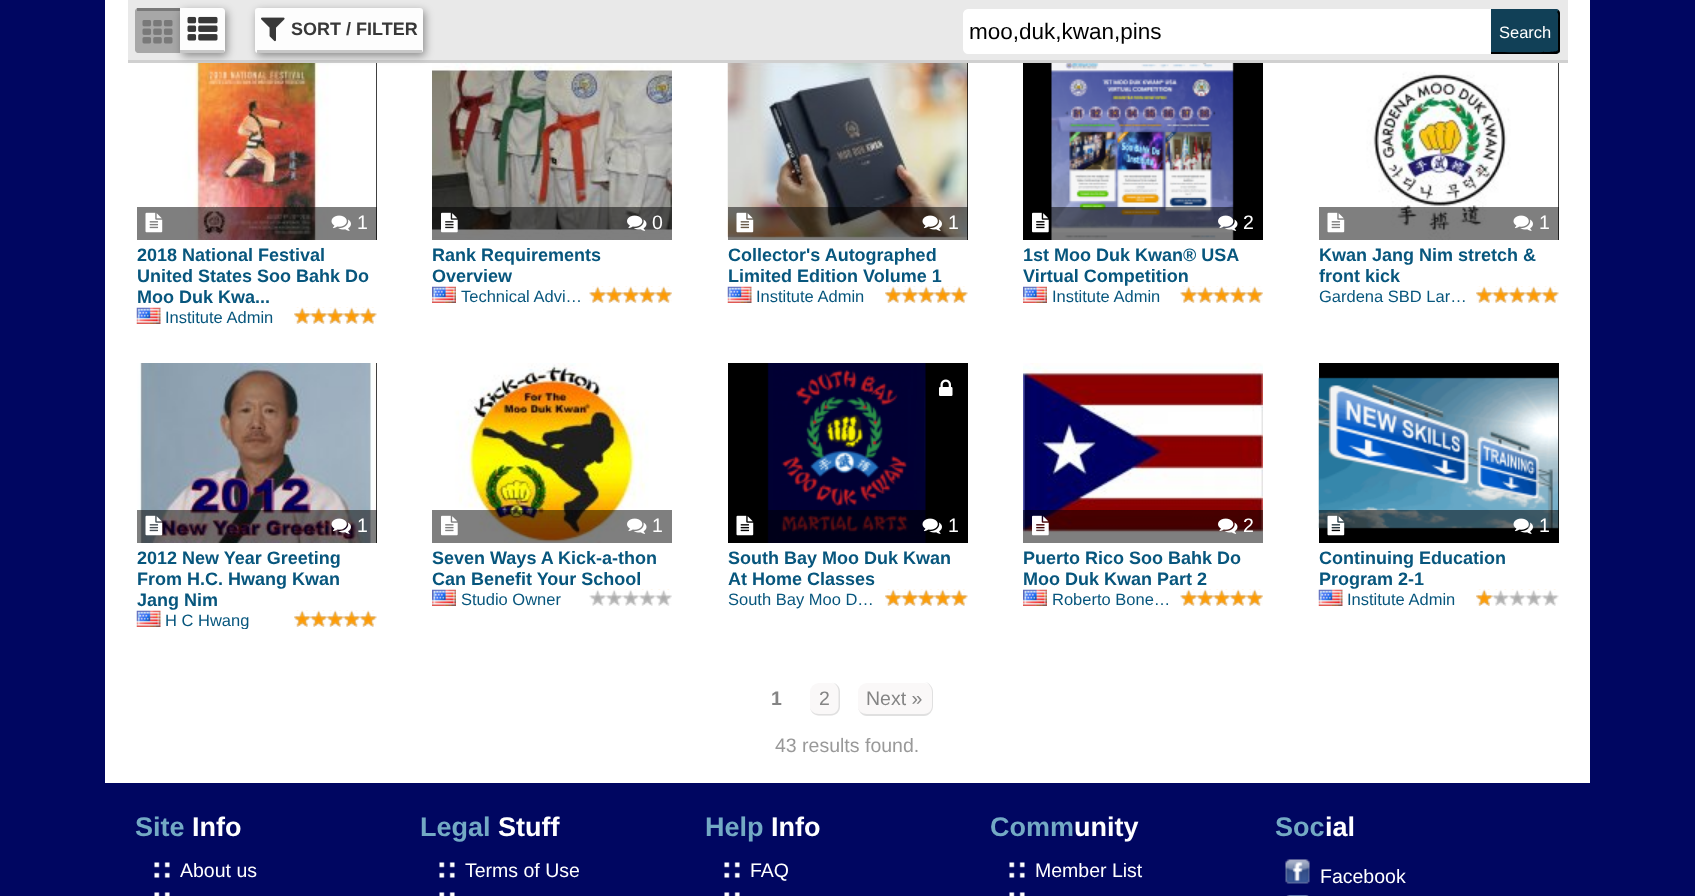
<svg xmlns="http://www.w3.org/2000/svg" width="1695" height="896">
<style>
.a{font:bold 18px Liberation Sans;fill:#383838}
.b{font:22.5px Liberation Sans;fill:#000}
.c{font:16.5px Liberation Sans;fill:#fff}
.d{font:19.5px Liberation Sans;fill:#fff}
.e{font:bold 18px Liberation Sans;fill:#07567d}
.f{font:16.5px Liberation Sans;fill:#07567d}
.g{font:bold 19.5px Liberation Sans;fill:#858585}
.h{font:19.5px Liberation Sans;fill:#858585}
.i{font:19.5px Liberation Sans;fill:#999}
.j{font:bold 27px Liberation Sans;fill:#73a9c4}
.k{font:bold 27px Liberation Sans;fill:#fff}
</style>
<defs>
<clipPath id="clip1"><path d="M137 611h112v18H137z"/></clipPath>
</defs>
<rect width="100%" height="100%" fill="#000661"/>
<path fill="#fff" d="M105 0h1485v783H105z"/>
<path fill="#e9e9e9" d="M128 0h1440v60H128z"/>
<path fill="#d0d0d0" d="M128 60h1440v3H128z"/>
<path fill="#a7a7a7" d="M138 8h42v45h-42c-1.5 0-3-1.5-3-3v-39c0-1.5 1.5-3 3-3z"/>
<path fill="#797979" d="M137 8h43v3H137z"/>
<image href="1.png" x="142" y="20" width="31" height="24"/>
<path fill="#000" d="M376 63h1v177H376z"/>
<image href="4.png" x="137" y="63" width="240" height="177"/>
<rect fill="#00000066" filter="blur(4px)" x="182" y="11" width="45" height="45" rx="3"/>
<path fill="#fdfdfd" d="M180 8h42c1.5 0 3 1.5 3 3v39c0 1.5-1.5 3-3 3h-42z"/>
<path fill="#c7c7c7" d="M180 50h44v3H180z"/>
<image href="2.png" x="187" y="16" width="31" height="25"/>
<image href="10.png" x="432" y="63" width="240" height="177"/>
<rect fill="#00000066" filter="blur(4px)" x="257" y="11" width="168" height="45" rx="3"/>
<rect fill="#fdfdfd" x="255" y="8" width="168" height="45" rx="3"/>
<path fill="#c7c7c7" d="M257 50h165v3H257z"/>
<image href="3.png" x="261" y="17" width="24" height="25"/>
<path fill="#fff" stroke="#fff" stroke-width="2" d="M968 10h522v43h-522c-2 0-4-2-4-4v-35c0-2 2-4 4-4z"/>
<path fill="#114057" d="M1491 9h64c3 0 5 2 5 5v35c0 3-2 5-5 5h-64z"/>
<path fill="#114057" d="M1491 9v1h65l1 2l2-2l-3-1z"/>
<path fill="#000" d="M1557 51l1-1v-30c0-2 1-6-1-8l2-2c0 1 1 2 1 4v36c0 1 0 2-1 3z"/>
<path fill="#000" d="M1491 52v2h65l3-1l-2-2c-1 2-59 1-66 1z"/>
<path fill="#00000080" d="M137 207h240v33H137z"/>
<image href="5.png" x="145" y="212" width="18" height="21"/>
<image href="6.png" x="331" y="215" width="20" height="16"/>
<image href="7.png" x="136" y="307" width="25" height="17"/>
<image href="8.png" x="294" y="307" width="83" height="17"/>
<image href="9.png" x="294" y="307" width="83" height="17"/>
<path fill="#00000080" d="M432 207h240v33H432z"/>
<image href="11.png" x="441" y="212" width="17" height="21"/>
<image href="12.png" x="627" y="215" width="20" height="16"/>
<image href="13.png" x="432" y="286" width="24" height="17"/>
<image href="14.png" x="589" y="286" width="83" height="17"/>
<image href="15.png" x="589" y="286" width="83" height="17"/>
<path fill="#000" d="M967 63h1v177H967z"/>
<image href="16.png" x="727" y="63" width="241" height="177"/>
<path fill="#00000080" d="M728 207h240v33H728z"/>
<image href="17.png" x="736" y="212" width="18" height="21"/>
<image href="18.png" x="922" y="215" width="20" height="16"/>
<image href="19.png" x="727" y="286" width="25" height="17"/>
<image href="20.png" x="885" y="286" width="83" height="17"/>
<image href="21.png" x="885" y="286" width="83" height="17"/>
<path fill="#000" d="M1023 63h240v177H1023z"/>
<image href="22.png" x="1051" y="63" width="183" height="177"/>
<path fill="#00000080" d="M1051 207h183v33H1051z"/>
<image href="23.png" x="1032" y="212" width="17" height="21"/>
<image href="24.png" x="1218" y="215" width="20" height="16"/>
<image href="25.png" x="1023" y="286" width="24" height="17"/>
<image href="26.png" x="1180" y="286" width="83" height="17"/>
<image href="27.png" x="1180" y="286" width="83" height="17"/>
<path fill="#000" d="M1558 63h1v177H1558z"/>
<image href="28.png" x="1319" y="63" width="240" height="177"/>
<path fill="#00000080" d="M1319 207h240v33H1319z"/>
<image href="5.png" x="1327" y="212" width="18" height="21"/>
<image href="6.png" x="1513" y="215" width="20" height="16"/>
<image href="29.png" x="1476" y="286" width="83" height="17"/>
<image href="30.png" x="1476" y="286" width="83" height="17"/>
<path fill="#000" d="M376 363h1v180H376z"/>
<image href="31.png" x="137" y="363" width="240" height="180"/>
<path fill="#00000080" d="M137 510h240v33H137z"/>
<image href="32.png" x="145" y="515" width="18" height="21"/>
<image href="33.png" x="331" y="518" width="20" height="16"/>
<image href="7.png" x="136" y="610" width="25" height="17"/>
<image href="34.png" x="294" y="610" width="83" height="17"/>
<image href="35.png" x="294" y="610" width="83" height="17"/>
<image href="36.png" x="432" y="363" width="240" height="180"/>
<path fill="#00000080" d="M432 510h240v33H432z"/>
<image href="37.png" x="441" y="515" width="17" height="21"/>
<image href="38.png" x="627" y="518" width="20" height="16"/>
<image href="13.png" x="432" y="589" width="24" height="17"/>
<image href="39.png" x="589" y="589" width="83" height="17"/>
<path fill="#000" d="M728 363h240v180H728z"/>
<image href="40.png" x="767" y="363" width="159" height="180"/>
<image href="41.png" x="939" y="379" width="14" height="17"/>
<path fill="#00000080" d="M767 510h159v33H767z"/>
<image href="42.png" x="736" y="515" width="18" height="21"/>
<image href="43.png" x="922" y="518" width="20" height="16"/>
<image href="44.png" x="885" y="589" width="83" height="17"/>
<image href="45.png" x="885" y="589" width="83" height="17"/>
<image href="46.png" x="1023" y="363" width="240" height="180"/>
<path fill="#00000080" d="M1023 510h240v33H1023z"/>
<image href="47.png" x="1032" y="515" width="17" height="21"/>
<image href="48.png" x="1218" y="518" width="20" height="16"/>
<image href="25.png" x="1023" y="589" width="24" height="17"/>
<image href="49.png" x="1180" y="589" width="83" height="17"/>
<image href="50.png" x="1180" y="589" width="83" height="17"/>
<path fill="#000" d="M1319 363h240v180H1319z"/>
<image href="51.png" x="1318" y="377" width="241" height="152"/>
<path fill="#00000080" d="M1319 510h240v19H1319z"/>
<image href="52.png" x="1327" y="515" width="18" height="21"/>
<image href="53.png" x="1513" y="518" width="20" height="16"/>
<image href="19.png" x="1318" y="589" width="25" height="17"/>
<image href="54.png" x="1476" y="589" width="83" height="17"/>
<image href="55.png" x="1476" y="589" width="17" height="17"/>
<rect fill="#faf8f8" x="810" y="683" width="30" height="33" rx="9"/>
<path fill="#e0e0e0" fill-rule="evenodd" d="M819 682.5h12c5 0 9 4 9 9v15c0 5-4 9-9 9h-12c-5 0-9-4-9-9v-15c0-5 4-9 9-9zm0 0h12c4 0 7.5 4 7.5 9v15c0 4-3.5 7.5-7.5 7.5h-12c-5 0-9-3.5-9-7.5v-15c0-5 4-9 9-9z"/>
<rect fill="#faf8f8" x="858" y="683" width="75" height="33" rx="9"/>
<path fill="#e0e0e0" fill-rule="evenodd" d="M867 682h57c5 0 9 5 9 10v14c0 5-4 10-9 10h-57c-5 0-9-5-9-10v-14c0-5 4-10 9-10zm0 0h57c4 0 8 5 8 10v14c0 5-4 8-8 8h-57c-5 0-9-3-9-8v-14c0-5 4-10 9-10z"/>
<image href="56.png" x="154" y="862" width="16" height="16"/>
<image href="57.png" x="154" y="892" width="16" height="4"/>
<image href="56.png" x="439" y="862" width="16" height="16"/>
<image href="57.png" x="439" y="892" width="16" height="4"/>
<image href="56.png" x="724" y="862" width="16" height="16"/>
<image href="57.png" x="724" y="892" width="16" height="4"/>
<image href="56.png" x="1009" y="862" width="16" height="16"/>
<image href="57.png" x="1009" y="892" width="16" height="4"/>
<image href="58.png" x="1285" y="859" width="25" height="25"/>
<image href="59.png" x="1286" y="895" width="23" height="1"/>
<text class="a" x="291" y="35">SORT / FILTER</text>
<text class="b" x="969" y="39">moo,duk,kwan,pins</text>
<text class="c" x="1499" y="38">Search</text>
<text class="d" x="357" y="229">1</text>
<text class="e" x="137" y="261">2018 National Festival</text>
<text class="e" x="137" y="282">United States Soo Bahk Do</text>
<text class="e" x="137" y="303">Moo Duk Kwa...</text>
<text class="f" x="165" y="323">Institute Admin</text>
<text class="d" x="652" y="229">0</text>
<text class="e" x="432" y="261">Rank Requirements</text>
<text class="e" x="432" y="282">Overview</text>
<text class="f" x="461" y="302">Technical Advi…</text>
<text class="d" x="948" y="229">1</text>
<text class="e" x="728" y="261">Collector's Autographed</text>
<text class="e" x="728" y="282">Limited Edition Volume 1</text>
<text class="f" x="756" y="302">Institute Admin</text>
<text class="d" x="1243" y="229">2</text>
<text class="e" x="1023" y="261">1st Moo Duk Kwan® USA</text>
<text class="e" x="1023" y="282">Virtual Competition</text>
<text class="f" x="1052" y="302">Institute Admin</text>
<text class="d" x="1539" y="229">1</text>
<text class="e" x="1319" y="261">Kwan Jang Nim stretch &amp;</text>
<text class="e" x="1319" y="282">front kick</text>
<text class="f" x="1319" y="302">Gardena SBD Lar…</text>
<text class="d" x="357" y="532">1</text>
<text class="e" x="137" y="564">2012 New Year Greeting</text>
<text class="e" x="137" y="585">From H.C. Hwang Kwan</text>
<text class="e" x="137" y="606">Jang Nim</text>
<g clip-path="url(#clip1)">
<text class="f" x="165" y="626">H C Hwang</text>
</g>
<text class="d" x="652" y="532">1</text>
<text class="e" x="432" y="564">Seven Ways A Kick-a-thon</text>
<text class="e" x="432" y="585">Can Benefit Your School</text>
<text class="f" x="461" y="605">Studio Owner</text>
<text class="d" x="948" y="532">1</text>
<text class="e" x="728" y="564">South Bay Moo Duk Kwan</text>
<text class="e" x="728" y="585">At Home Classes</text>
<text class="f" x="728" y="605">South Bay Moo D…</text>
<text class="d" x="1243" y="532">2</text>
<text class="e" x="1023" y="564">Puerto Rico Soo Bahk Do</text>
<text class="e" x="1023" y="585">Moo Duk Kwan Part 2</text>
<text class="f" x="1052" y="605">Roberto Bone…</text>
<text class="d" x="1539" y="532">1</text>
<text class="e" x="1319" y="564">Continuing Education</text>
<text class="e" x="1319" y="585">Program 2-1</text>
<text class="f" x="1347" y="605">Institute Admin</text>
<text class="g" x="771" y="705">1</text>
<text class="h" x="819" y="705">2</text>
<text class="h" x="866" y="705">Next »</text>
<text class="i" x="775" y="752">43 results found.</text>
<text class="j" x="135" y="836">Site</text>
<text class="k" x="192" y="836">Info</text>
<text class="d" x="180" y="877">About us</text>
<text class="j" x="420" y="836">Legal</text>
<text class="k" x="498" y="836">Stuff</text>
<text class="d" x="465" y="877">Terms of Use</text>
<text class="j" x="705" y="836">Help</text>
<text class="k" x="771" y="836">Info</text>
<text class="d" x="750" y="877">FAQ</text>
<text class="j" x="990" y="836">Comm</text>
<text class="k" x="1074" y="836">unity</text>
<text class="d" x="1035" y="877">Member List</text>
<text class="j" x="1275" y="836">Soc</text>
<text class="k" x="1325" y="836">ial</text>
<text class="d" x="1320" y="883">Facebook</text>
</svg>
